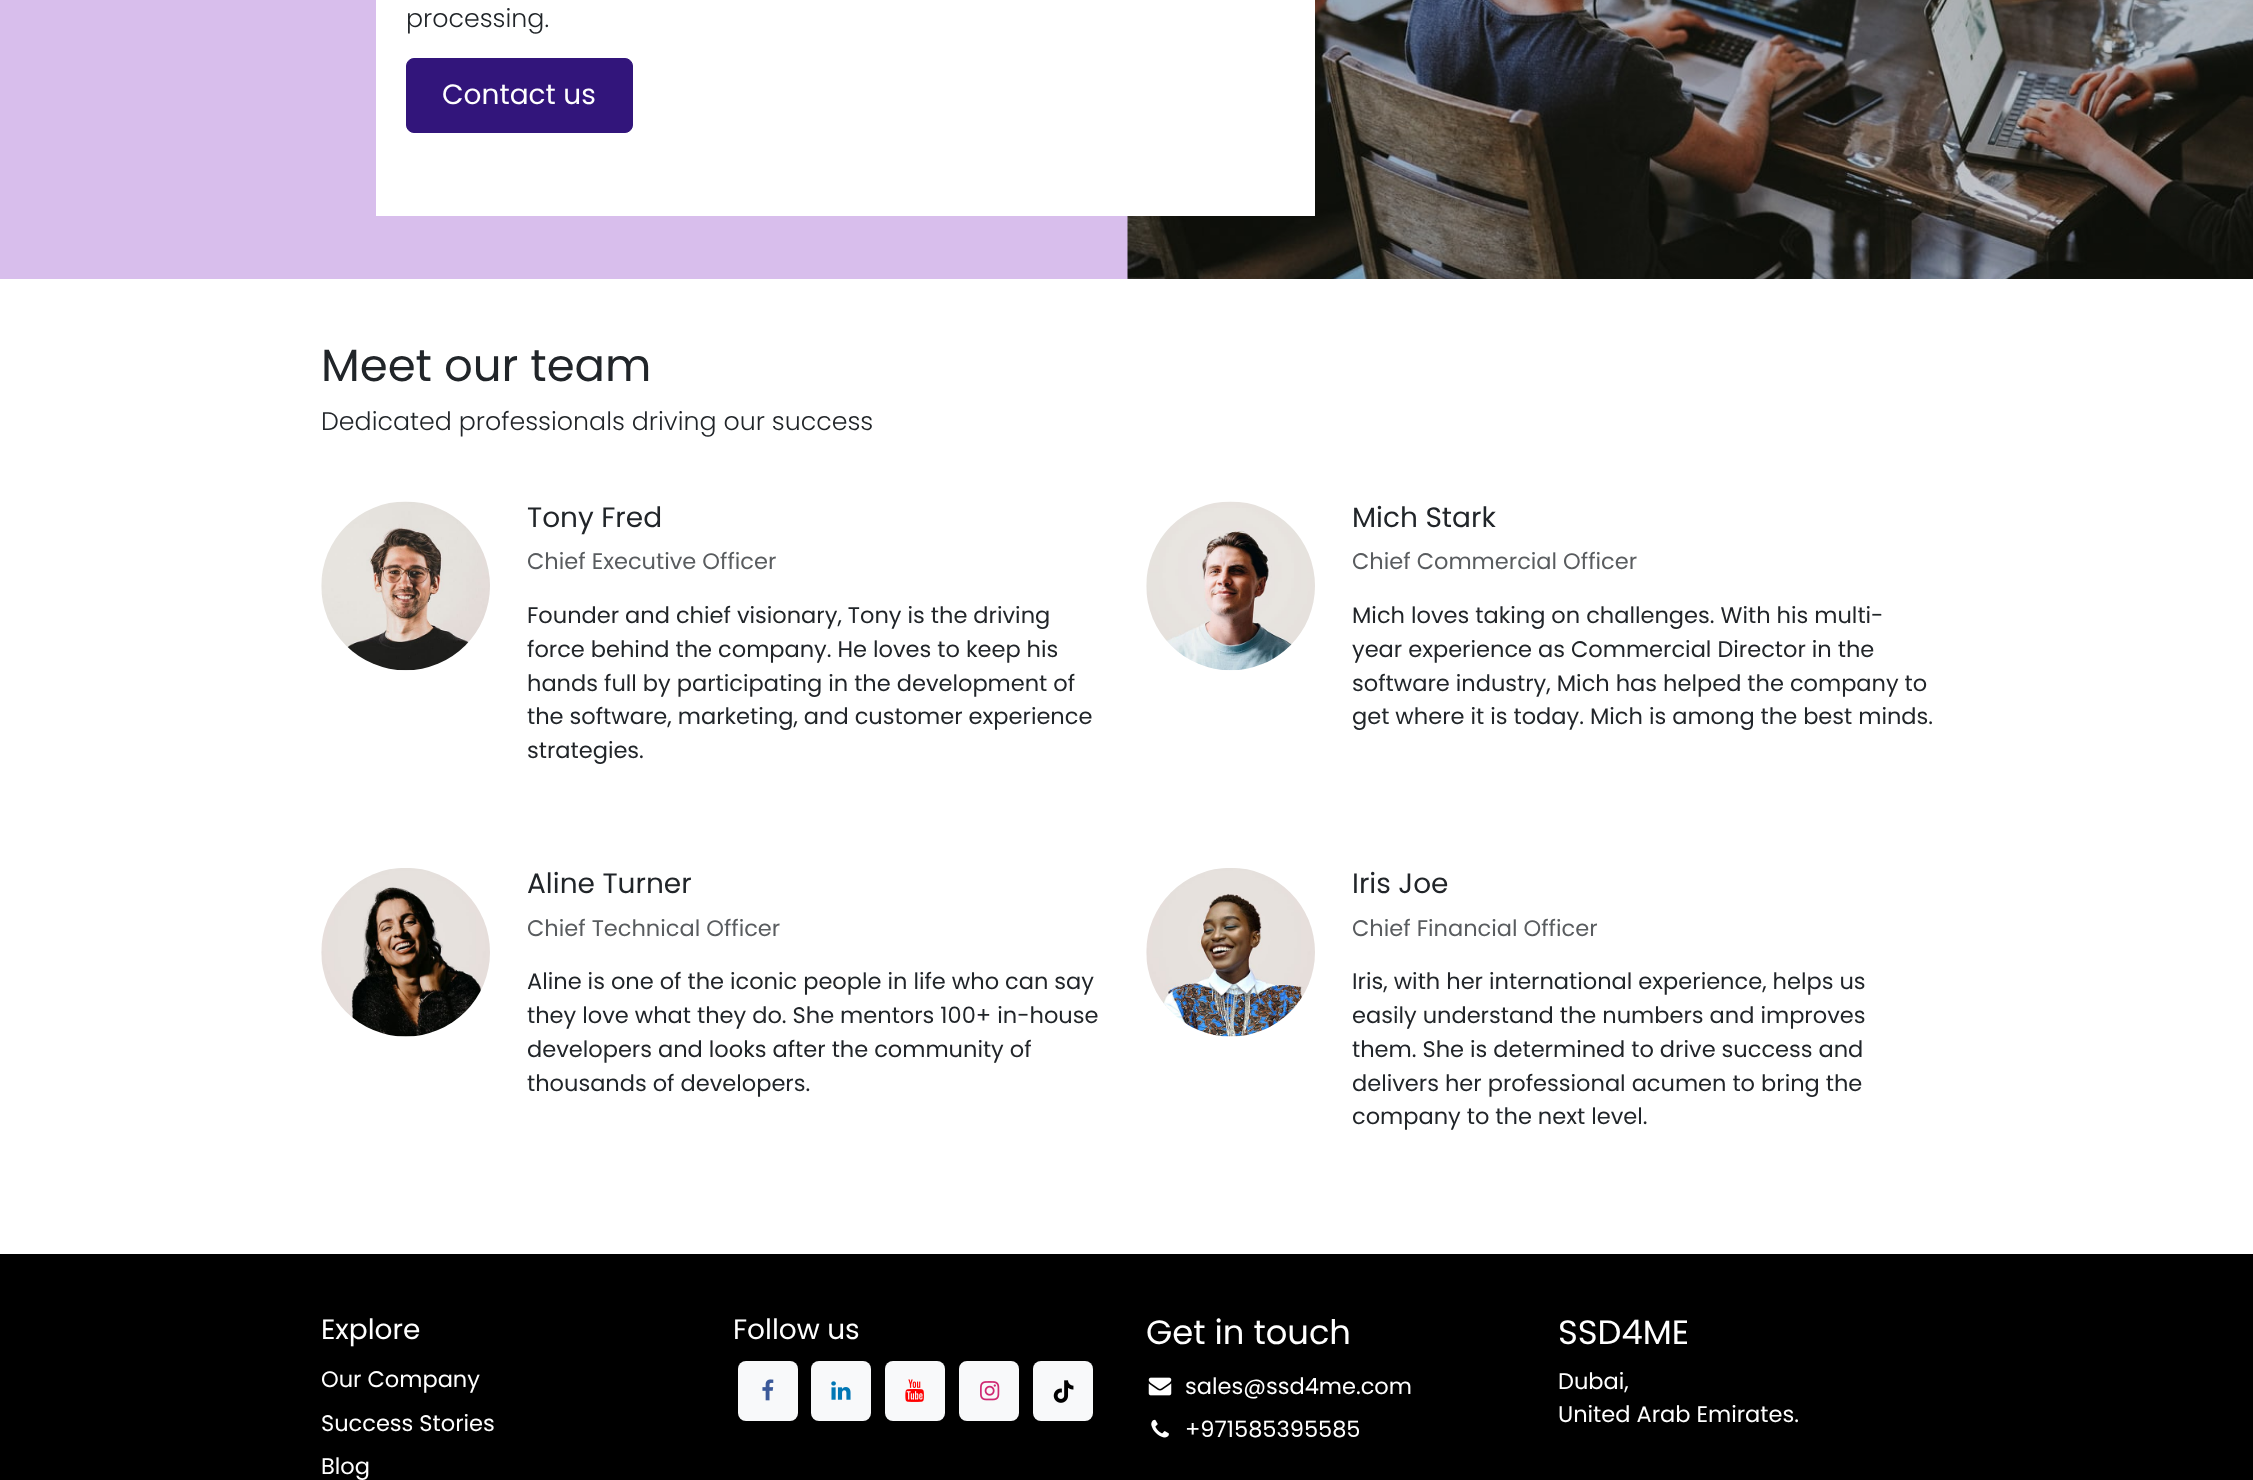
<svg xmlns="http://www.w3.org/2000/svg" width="2253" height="1480">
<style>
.a{font:300 25.3px Poppins;fill:#212529}
.b{font:28px Poppins;fill:#fff}
.c{font:45px Poppins;fill:#212529}
.d{font:28px Poppins;fill:#212529}
.e{font:22.5px Poppins;fill:#595c5f}
.f{font:22.5px Poppins;fill:#212529}
.g{font:22.5px Poppins;fill:#fff}
.h{font:33.75px Poppins;fill:#fff}
</style>
<rect width="100%" height="100%" fill="#fff"/>
<path fill="#d8beec" d="M0 0h1128v279H0z"/>
<image href="1.png" x="1127" y="0" width="1126" height="279"/>
<path fill="#fff" d="M376 0h939v216H376z"/>
<rect fill="#32157b" stroke="#32157b" x="406.5" y="58.5" width="226" height="74" rx="7.5"/>
<image href="2.png" x="321" y="501" width="169" height="170"/>
<image href="3.png" x="1146" y="501" width="169" height="170"/>
<image href="4.png" x="321" y="868" width="169" height="169"/>
<image href="5.png" x="1146" y="868" width="169" height="169"/>
<path fill="#000" d="M0 1254h2253v226H0z"/>
<rect fill="#f8f9fa" x="738" y="1361" width="60" height="60" rx="8"/>
<image href="6.png" x="762" y="1379" width="12" height="22"/>
<rect fill="#f8f9fa" x="811" y="1361" width="60" height="60" rx="8"/>
<image href="7.png" x="831" y="1381" width="20" height="19"/>
<rect fill="#f8f9fa" x="885" y="1361" width="60" height="60" rx="8"/>
<image href="8.png" x="905" y="1379" width="19" height="23"/>
<rect fill="#f8f9fa" x="959" y="1361" width="60" height="60" rx="8"/>
<image href="9.png" x="980" y="1381" width="20" height="20"/>
<rect fill="#f8f9fa" x="1033" y="1361" width="60" height="60" rx="8"/>
<image href="10.png" x="1053" y="1380" width="21" height="23"/>
<image href="11.png" x="1148" y="1377" width="24" height="19"/>
<image href="12.png" x="1151" y="1419" width="18" height="19"/>
<text class="a" x="406" y="27">processing.</text>
<text class="b" x="442" y="104">Contact us</text>
<text class="c" x="321" y="381">Meet our team</text>
<text class="a" x="321" y="430">Dedicated professionals driving our success</text>
<text class="d" x="527" y="527">Tony Fred</text>
<text class="e" x="527" y="569">Chief Executive Officer</text>
<text class="f" x="527" y="623">Founder and chief visionary, Tony is the driving</text>
<text class="f" x="527" y="657">force behind the company. He loves to keep his</text>
<text class="f" x="527" y="691">hands full by participating in the development of</text>
<text class="f" x="527" y="724">the software, marketing, and customer experience</text>
<text class="f" x="527" y="758">strategies.</text>
<text class="d" x="1352" y="527">Mich Stark</text>
<text class="e" x="1352" y="569">Chief Commercial Officer</text>
<text class="f" x="1352" y="623">Mich loves taking on challenges. With his multi-</text>
<text class="f" x="1352" y="657">year experience as Commercial Director in the</text>
<text class="f" x="1352" y="691">software industry, Mich has helped the company to</text>
<text class="f" x="1352" y="724">get where it is today. Mich is among the best minds.</text>
<text class="d" x="527" y="893">Aline Turner</text>
<text class="e" x="527" y="936">Chief Technical Officer</text>
<text class="f" x="527" y="989">Aline is one of the iconic people in life who can say</text>
<text class="f" x="527" y="1023">they love what they do. She mentors 100+ in-house</text>
<text class="f" x="527" y="1057">developers and looks after the community of</text>
<text class="f" x="527" y="1091">thousands of developers.</text>
<text class="d" x="1352" y="893">Iris Joe</text>
<text class="e" x="1352" y="936">Chief Financial Officer</text>
<text class="f" x="1352" y="989">Iris, with her international experience, helps us</text>
<text class="f" x="1352" y="1023">easily understand the numbers and improves</text>
<text class="f" x="1352" y="1057">them. She is determined to drive success and</text>
<text class="f" x="1352" y="1091">delivers her professional acumen to bring the</text>
<text class="f" x="1352" y="1124">company to the next level.</text>
<text class="b" x="321" y="1339">Explore</text>
<text class="g" x="321" y="1387">Our Company</text>
<text class="g" x="321" y="1431">Success Stories</text>
<text class="g" x="321" y="1474">Blog</text>
<text class="b" x="733" y="1339">Follow us</text>
<text class="h" x="1146" y="1344">Get in touch</text>
<text class="g" x="1185" y="1394">sales@ssd4me.com</text>
<text class="g" x="1185" y="1437">+971585395585</text>
<text class="h" x="1558" y="1344">SSD4ME</text>
<text class="g" x="1558" y="1389">Dubai,</text>
<text class="g" x="1558" y="1422">United Arab Emirates.</text>
</svg>
